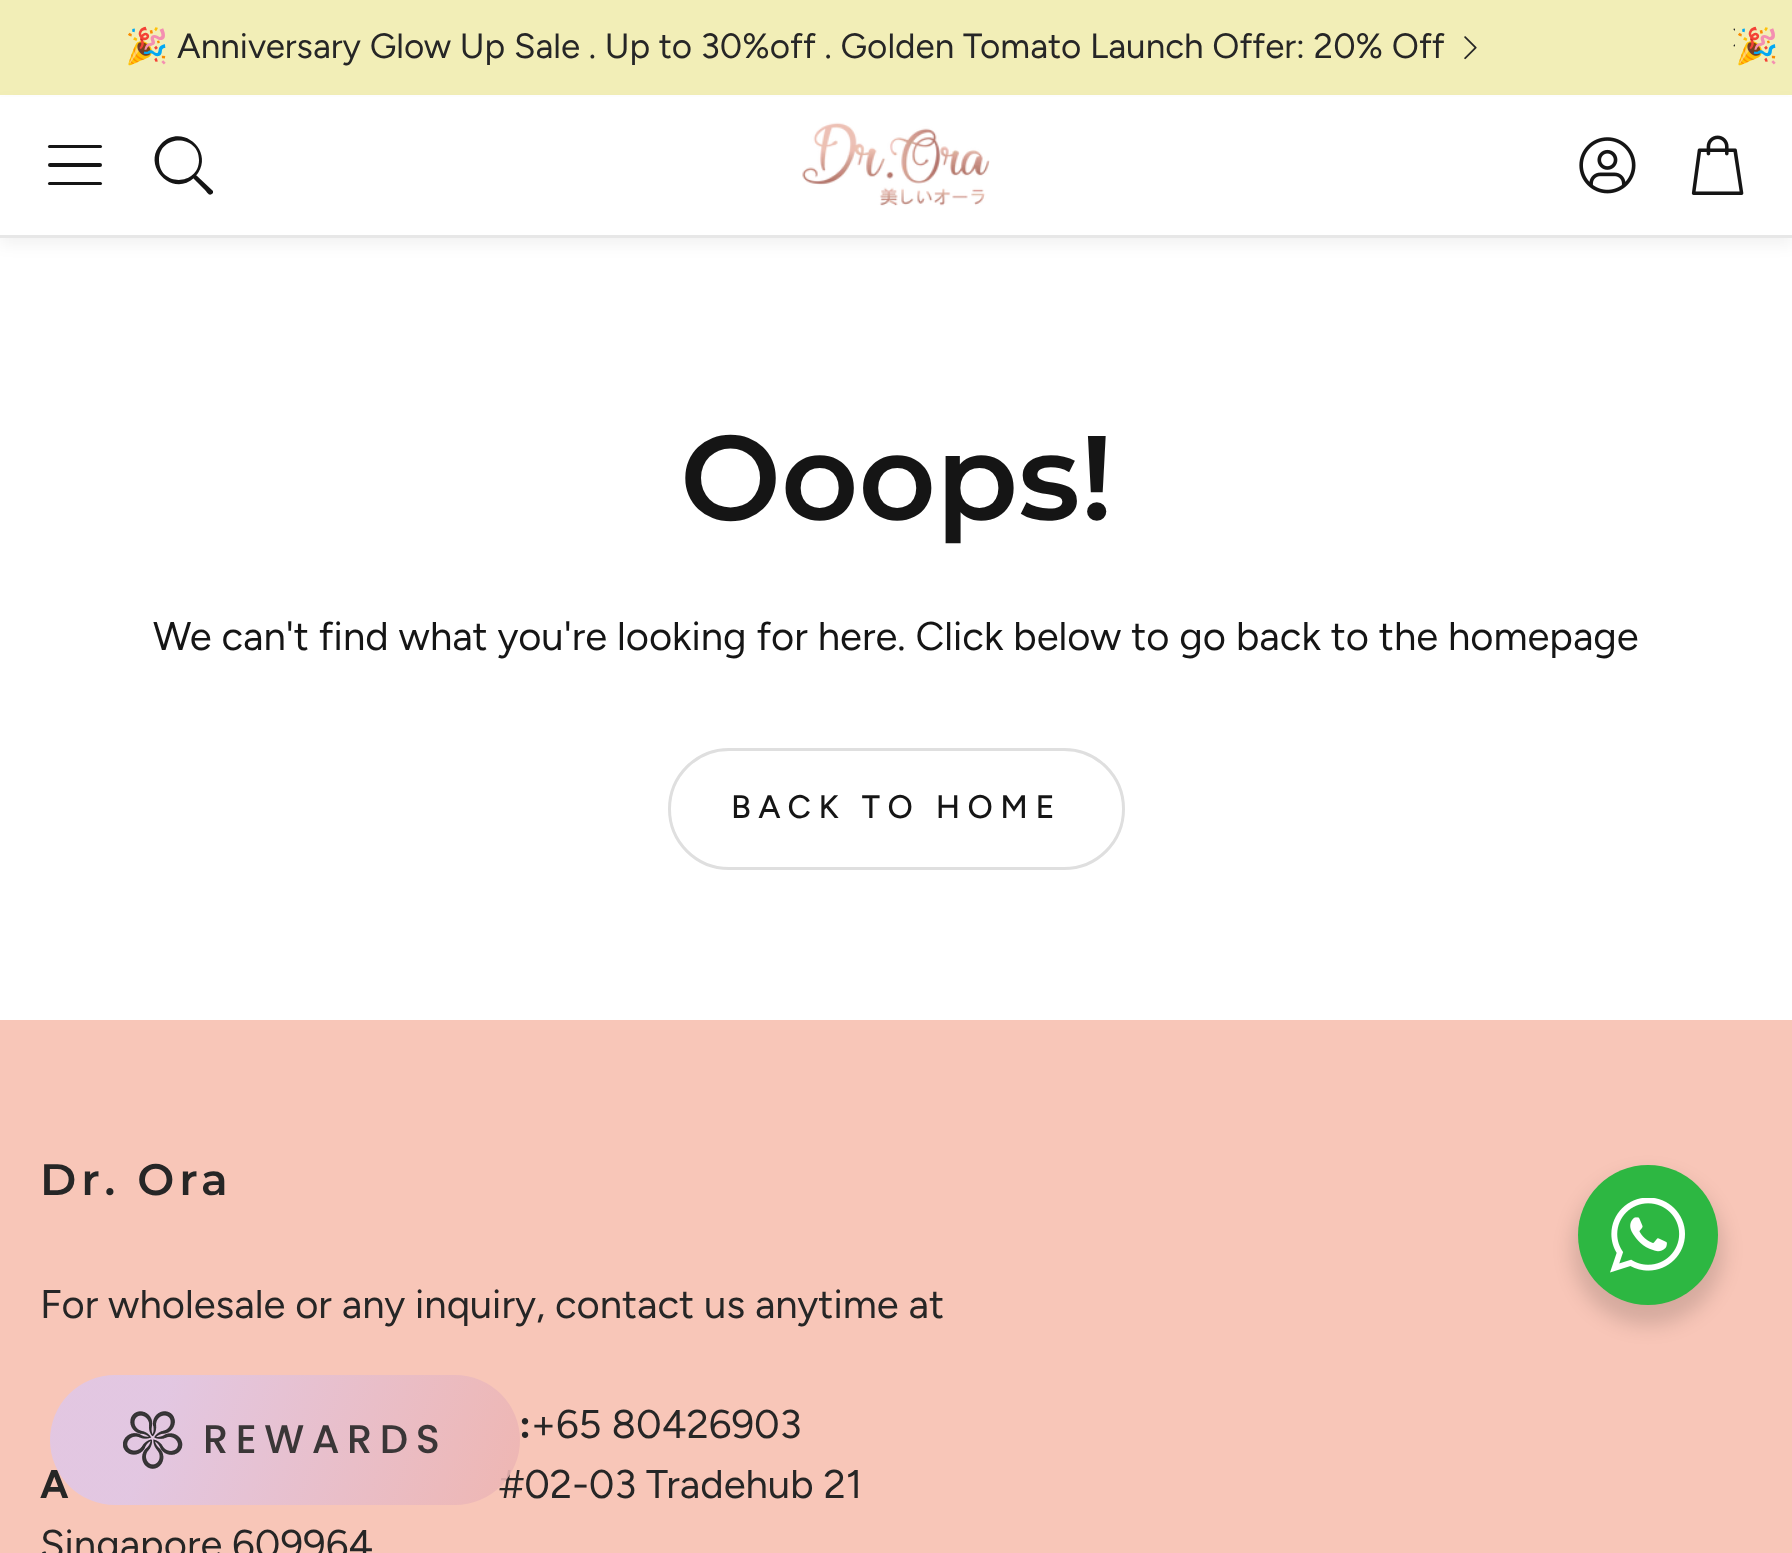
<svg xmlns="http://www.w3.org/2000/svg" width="1792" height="1553">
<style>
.a{font:35px Noto Color Emoji;fill:#262626}
.b{font:35px Figtree;fill:#262626}
.c{font:600 120px Montserrat;fill:#151515}
.d{font:40px Figtree;fill:#151515}
.e{font:500 32.5px Figtree;letter-spacing:7.5px;fill:#151515}
.f{font:600 44px Montserrat;letter-spacing:5px;fill:#262626}
.g{font:40px Figtree;fill:#262626}
.h{font:bold 40px Figtree;fill:#262626}
.i{font:500 40px Poppins;letter-spacing:7.5px;fill:#3a3637}
</style>
<defs>
<linearGradient id="g1" gradientUnits="userSpaceOnUse" x1="56" y1="1359" x2="698" y2="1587"><stop offset="0.17" stop-color="#e0c7e6" stop-opacity="0.9"/><stop offset="1" stop-color="#f5ab96" stop-opacity="0.9"/></linearGradient>
</defs>
<rect width="100%" height="100%" fill="#fff"/>
<path fill="#f2eeb7" d="M0 0h1792v95H0z"/>
<image href="1.png" x="1464" y="36" width="13" height="24"/>
<path fill="#0000000d" filter="blur(7.5px)" d="M0 103h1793v142H0z"/>
<path fill="#fff" d="M0 97h1792v138H0z"/>
<path fill="#e7e7e7" d="M0 235h1792v3H0z"/>
<rect fill="#151515" x="48" y="145" width="54" height="3" rx="1.5"/>
<rect fill="#151515" x="48" y="163" width="54" height="4" rx="2"/>
<rect fill="#151515" x="48" y="182" width="54" height="3" rx="1.5"/>
<path fill="#151515" d="M213 193c-4 4-5 0-9-4l-11-11c1 0 1 1 1 0c-22 20-53-13-33-34c21-22 55 8 35 32c2 0 0-2 0-1l17 16c0 1 0 1 0 2zm-14-33c0-26-40-26-40 0c0 27 40 26 40 0z"/>
<image href="3.png" x="802" y="122" width="188" height="84"/>
<image href="4.png" x="1579" y="137" width="57" height="57"/>
<image href="5.png" x="1691" y="135" width="53" height="60"/>
<rect fill="none" stroke="#dfdfdf" stroke-width="3" x="669.5" y="749.5" width="454" height="119" rx="59.5"/>
<path fill="#f8c6b8" d="M0 1020h1792v533H0z"/>
<rect fill="#00000024" filter="blur(10px)" x="1573" y="1175" width="150" height="150" rx="75"/>
<circle fill="#2db742" cx="1648" cy="1235" r="70"/>
<image href="6.png" x="1610" y="1198" width="75" height="75"/>
<text class="a" x="125" y="58">🎉</text>
<text class="b" x="177" y="58">Anniversary Glow Up Sale . Up to 30%off . Golden Tomato Launch Offer: 20% Off</text>
<text class="a" x="1735" y="58">🎉</text>
<image href="2.png" x="1733" y="28" width="2" height="19"/>
<text class="c" x="680" y="520">Ooops!</text>
<text class="d" x="153" y="650">We can't find what you're looking for here. Click below to go back to the homepage</text>
<text class="e" x="731" y="818">BACK TO HOME</text>
<text class="f" x="40" y="1195">Dr. Ora</text>
<text class="g" x="40" y="1318">For wholesale or any inquiry, contact us anytime at</text>
<text class="h" x="519" y="1438">:</text>
<text class="g" x="531" y="1438">+65 80426903</text>
<text class="h" x="40" y="1498">A</text>
<text class="g" x="499" y="1498">#02-03 Tradehub 21</text>
<text class="g" x="40" y="1558">Singapore 609964</text>
<rect fill="url(#g1)" x="50" y="1375" width="470" height="130" rx="65"/>
<image href="7.png" x="123" y="1411" width="60" height="58"/>
<text class="i" x="203" y="1453">REWARDS</text>
</svg>
